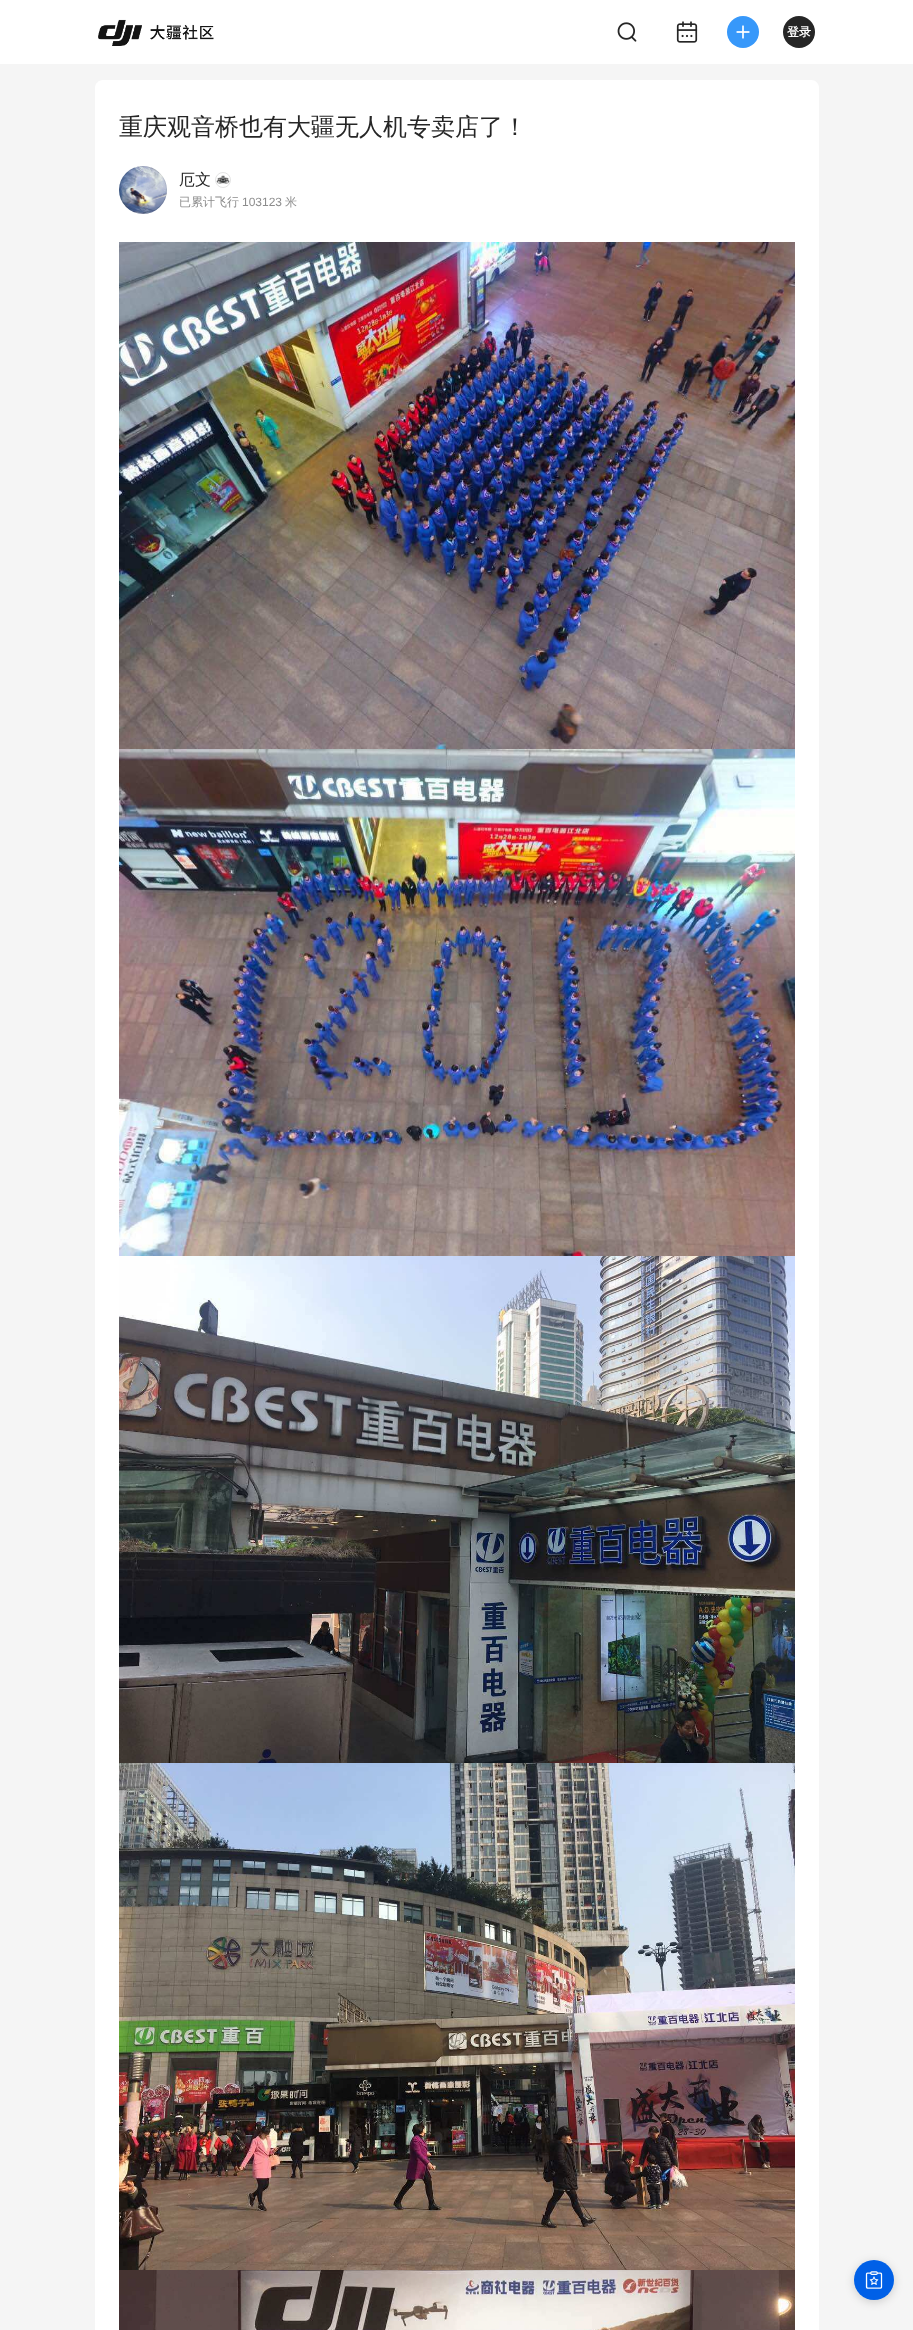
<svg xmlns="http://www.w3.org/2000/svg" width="913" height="2330">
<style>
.a{font:bold 12px WenQuanYi Zen Hei;fill:#fff}
.b{font:500 24px WenQuanYi Zen Hei;fill:#262626}
.c{font:500 16px WenQuanYi Zen Hei;fill:#262626}
.d{font:500 12px WenQuanYi Zen Hei;fill:#8c8c8c}
.e{font:12px Liberation Sans;fill:#8c8c8c}
</style>
<rect width="100%" height="100%" fill="#f5f5f5"/>
<path fill="#fff" d="M0 0h913v64H0z"/>
<image href="1.png" x="98" y="19" width="116" height="27"/>
<image href="2.png" x="617" y="22" width="20" height="20"/>
<image href="3.png" x="676" y="21" width="22" height="22"/>
<circle fill="#3798fa" cx="743" cy="32" r="16"/>
<image href="4.png" x="736" y="25" width="14" height="14"/>
<circle fill="#262626" cx="799" cy="32" r="16"/>
<path fill="#fff" d="M103 80h708c4.5 0 8 3.5 8 8v2242h-724v-2242c0-4.5 3.5-8 8-8z"/>
<image href="5.png" x="119" y="166" width="48" height="48"/>
<circle fill="none" stroke="#00000014" cx="143" cy="190" r="23.5"/>
<circle fill="none" stroke="#e4e4e4" cx="223" cy="180" r="7.5"/>
<image href="6.png" x="216" y="175" width="14" height="9"/>
<image href="7.png" x="119" y="242" width="676" height="507"/>
<image href="8.png" x="119" y="749" width="676" height="507"/>
<image href="9.png" x="119" y="1256" width="676" height="507"/>
<image href="10.png" x="119" y="1763" width="676" height="507"/>
<image href="11.png" x="119" y="2270" width="676" height="60"/>
<rect fill="#00000029" filter="blur(5px)" x="854" y="2262" width="40" height="40" rx="20"/>
<circle fill="#0060e7" cx="874" cy="2280" r="20"/>
<image href="12.png" x="865" y="2271" width="18" height="18"/>
<text class="a" x="787" y="36">登录</text>
<text class="b" x="119" y="135">重庆观音桥也有大疆无人机专卖店了！</text>
<text class="c" x="179" y="185">厄文</text>
<text class="d" x="179" y="206">已累计飞行</text>
<text class="e" x="242" y="206">103123</text>
<text class="d" x="285" y="206">米</text>
</svg>
